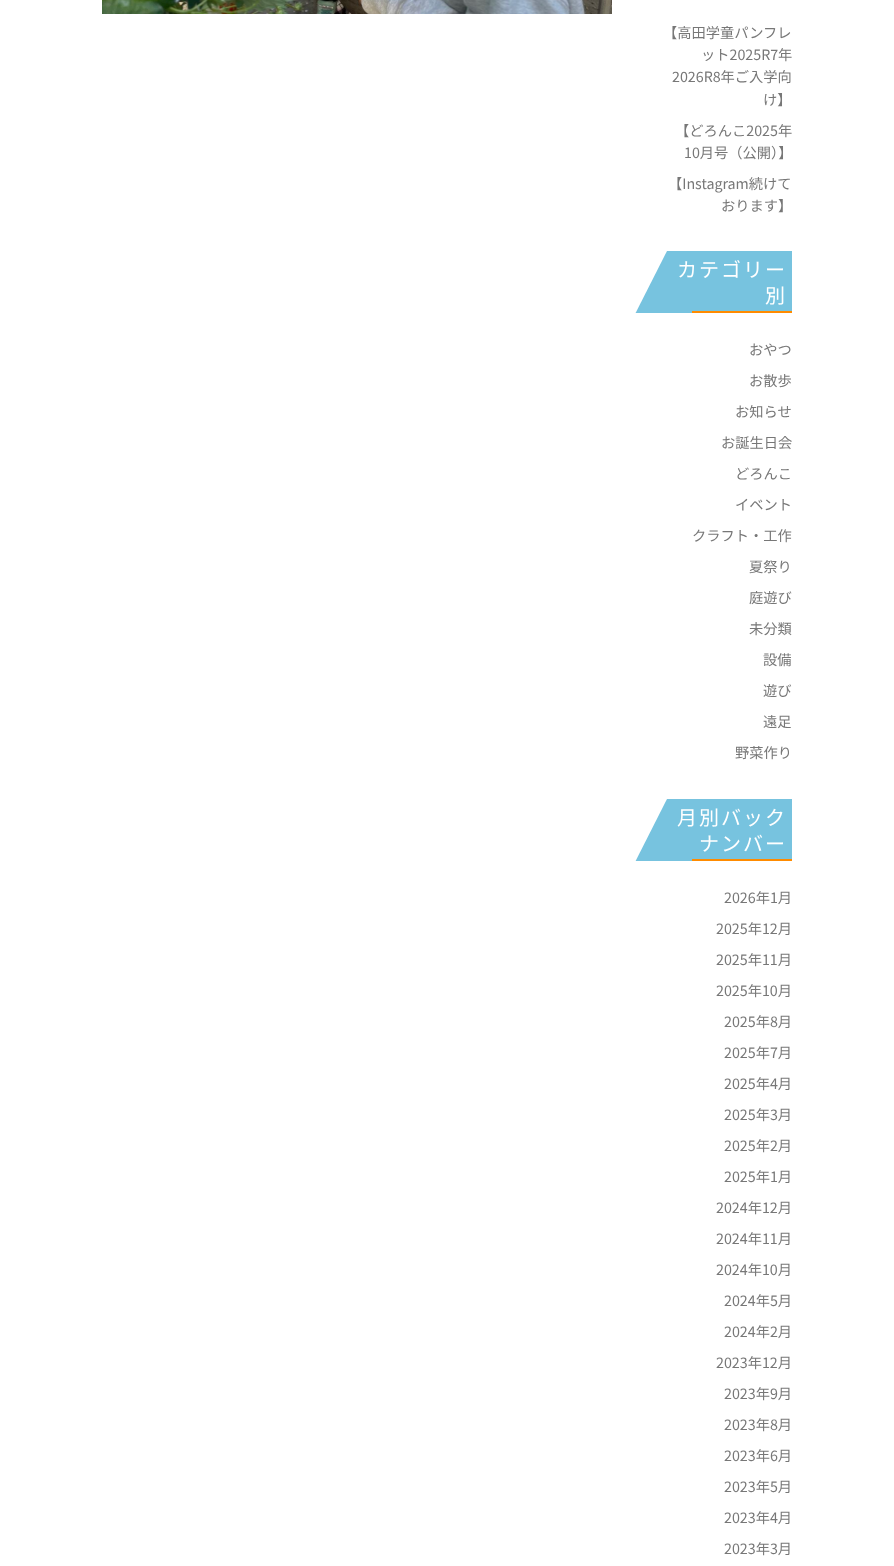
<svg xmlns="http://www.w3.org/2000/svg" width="894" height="1566">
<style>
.a{font:100 14.25px Noto Sans JP;fill:#777}
.b{font:100 20px Noto Sans JP;letter-spacing:2px;fill:#fff}
</style>
<rect width="100%" height="100%" fill="#fff"/>
<image href="1.png" x="102" y="0" width="510" height="14"/>
<path fill="#77c3df" d="M635 251h157v62H635z"/>
<path fill="#fff" d="M628 328v-79h40z"/>
<path fill="#ff8b00" d="M692 311h100v2H692z"/>
<path fill="#77c3df" d="M635 799h157v62H635z"/>
<path fill="#fff" d="M628 876v-79h40z"/>
<path fill="#ff8b00" d="M692 859h100v2H692z"/>
<text class="a" x="663" y="38">【高田学童パンフレ</text>
<text class="a" x="701" y="60">ット2025R7年</text>
<text class="a" x="672" y="82">2026R8年ご入学向</text>
<text class="a" x="763" y="105">け】</text>
<text class="a" x="675" y="136">【どろんこ2025年</text>
<text class="a" x="684" y="158">10月号（公開）】</text>
<text class="a" x="668" y="189">【Instagram続けて</text>
<text class="a" x="721" y="211">おります】</text>
<text class="b" x="677" y="277">カテゴリー</text>
<text class="b" x="765" y="303">別</text>
<text class="a" x="749" y="355">おやつ</text>
<text class="a" x="749" y="386">お散歩</text>
<text class="a" x="735" y="417">お知らせ</text>
<text class="a" x="721" y="448">お誕生日会</text>
<text class="a" x="735" y="479">どろんこ</text>
<text class="a" x="735" y="510">イベント</text>
<text class="a" x="692" y="541">クラフト・工作</text>
<text class="a" x="749" y="572">夏祭り</text>
<text class="a" x="749" y="603">庭遊び</text>
<text class="a" x="749" y="634">未分類</text>
<text class="a" x="763" y="665">設備</text>
<text class="a" x="763" y="696">遊び</text>
<text class="a" x="763" y="727">遠足</text>
<text class="a" x="735" y="758">野菜作り</text>
<text class="b" x="677" y="825">月別バック</text>
<text class="b" x="699" y="851">ナンバー</text>
<text class="a" x="724" y="903">2026年1月</text>
<text class="a" x="716" y="934">2025年12月</text>
<text class="a" x="716" y="965">2025年11月</text>
<text class="a" x="716" y="996">2025年10月</text>
<text class="a" x="724" y="1027">2025年8月</text>
<text class="a" x="724" y="1058">2025年7月</text>
<text class="a" x="724" y="1089">2025年4月</text>
<text class="a" x="724" y="1120">2025年3月</text>
<text class="a" x="724" y="1151">2025年2月</text>
<text class="a" x="724" y="1182">2025年1月</text>
<text class="a" x="716" y="1213">2024年12月</text>
<text class="a" x="716" y="1244">2024年11月</text>
<text class="a" x="716" y="1275">2024年10月</text>
<text class="a" x="724" y="1306">2024年5月</text>
<text class="a" x="724" y="1337">2024年2月</text>
<text class="a" x="716" y="1368">2023年12月</text>
<text class="a" x="724" y="1399">2023年9月</text>
<text class="a" x="724" y="1430">2023年8月</text>
<text class="a" x="724" y="1461">2023年6月</text>
<text class="a" x="724" y="1492">2023年5月</text>
<text class="a" x="724" y="1523">2023年4月</text>
<text class="a" x="724" y="1554">2023年3月</text>
</svg>
